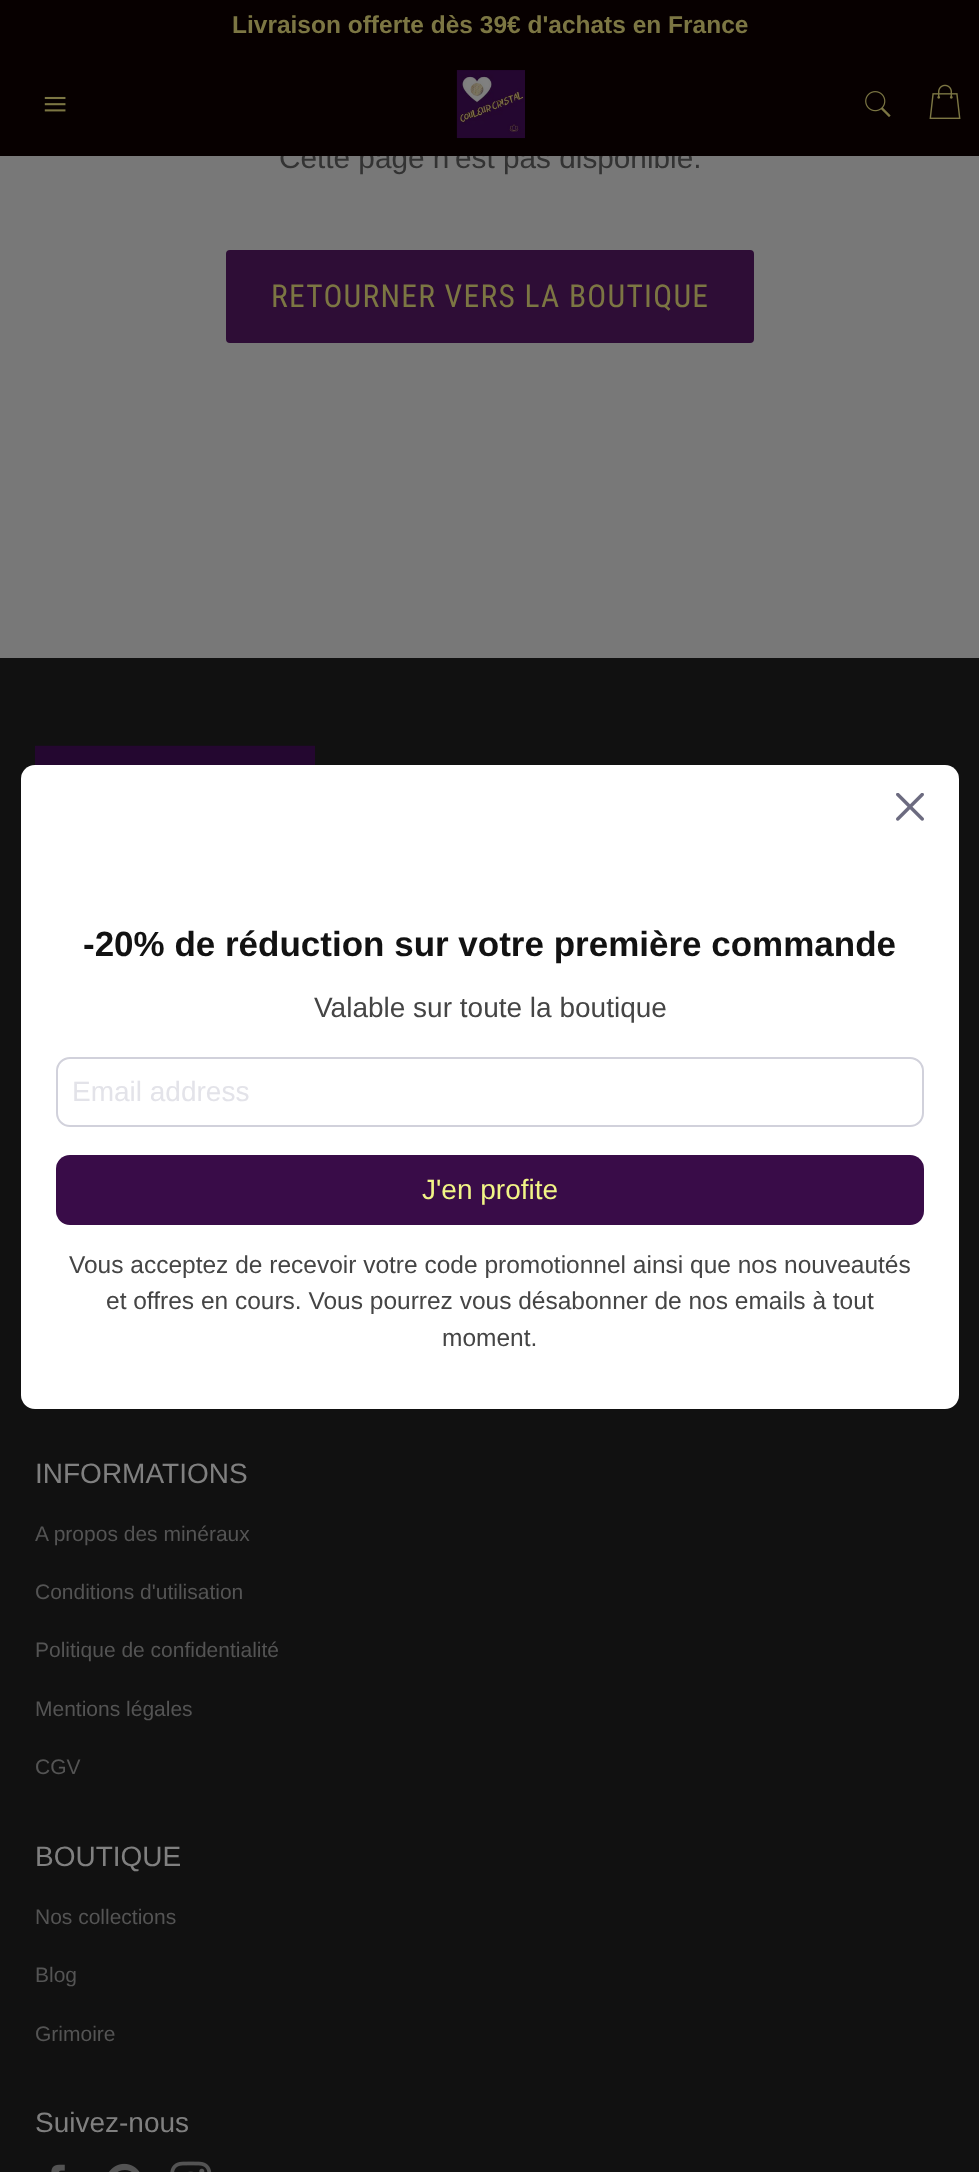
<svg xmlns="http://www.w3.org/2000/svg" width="979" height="2172">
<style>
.a{font:29.75px Liberation Sans;fill:#333}
.b{font:bold 24.5px Liberation Sans;fill:#7c7643}
.c{font:31.5px Roboto Condensed;letter-spacing:1.25px;fill:#7c7643}
.d{font:28px Liberation Sans;fill:#808080}
.e{font:21px Liberation Sans;fill:#545454}
.f{font:bold 35px Liberation Sans;fill:#121212}
.g{font:28px Liberation Sans;fill:#454545}
.h{font:28px Liberation Sans;fill:#e3e3e9}
.i{font:28px Liberation Sans;fill:#f1f486}
.j{font:24.5px Liberation Sans;fill:#454545}
</style>
<rect width="100%" height="100%" fill="#787878"/>
<rect fill="#2e0d36" stroke="#2e0d36" stroke-width="4" x="228" y="252" width="524" height="89" rx="2"/>
<path fill="#111" d="M0 658h979v1514H0z"/>
<image href="5.png" x="35" y="745" width="280" height="20"/>
<image href="6.png" x="51" y="2164" width="14" height="8"/>
<image href="7.png" x="109" y="2163" width="31" height="9"/>
<image href="8.png" x="170" y="2161" width="42" height="11"/>
<rect fill="#fff" x="21" y="765" width="938" height="644" rx="14"/>
<image href="9.png" x="896" y="793" width="28" height="28"/>
<rect fill="none" stroke="#d1d1db" stroke-width="2" x="57" y="1058" width="866" height="68" rx="13"/>
<rect fill="#390c48" x="56" y="1155" width="868" height="70" rx="14"/>
<text class="a" x="279" y="168">Cette page n'est pas disponible.</text>
<path fill="#070000" d="M0 0h979v156H0z"/>
<image href="4.png" x="929" y="84" width="32" height="35"/>
<image href="3.png" x="865" y="91" width="26" height="26"/>
<image href="1.png" x="44" y="96" width="22" height="16"/>
<image href="2.png" x="456" y="70" width="69" height="69"/>
<text class="b" x="232" y="33">Livraison offerte dès 39€ d'achats en France</text>
<text class="c" x="271" y="307">RETOURNER VERS LA BOUTIQUE</text>
<text class="d" x="35" y="1483">INFORMATIONS</text>
<text class="e" x="35" y="1541">A propos des minéraux</text>
<text class="e" x="35" y="1599">Conditions d'utilisation</text>
<text class="e" x="35" y="1657">Politique de confidentialité</text>
<text class="e" x="35" y="1716">Mentions légales</text>
<text class="e" x="35" y="1774">CGV</text>
<text class="d" x="35" y="1866">BOUTIQUE</text>
<text class="e" x="35" y="1924">Nos collections</text>
<text class="e" x="35" y="1982">Blog</text>
<text class="e" x="35" y="2041">Grimoire</text>
<text class="d" x="35" y="2132">Suivez-nous</text>
<text class="f" x="83" y="956">-20% de réduction sur votre première commande</text>
<text class="g" x="314" y="1017">Valable sur toute la boutique</text>
<text class="h" x="72" y="1101">Email address</text>
<text class="i" x="422" y="1199">J'en profite</text>
<text class="j" x="69" y="1273">Vous acceptez de recevoir votre code promotionnel ainsi que nos nouveautés</text>
<text class="j" x="106" y="1309">et offres en cours. Vous pourrez vous désabonner de nos emails à tout</text>
<text class="j" x="442" y="1346">moment.</text>
</svg>
